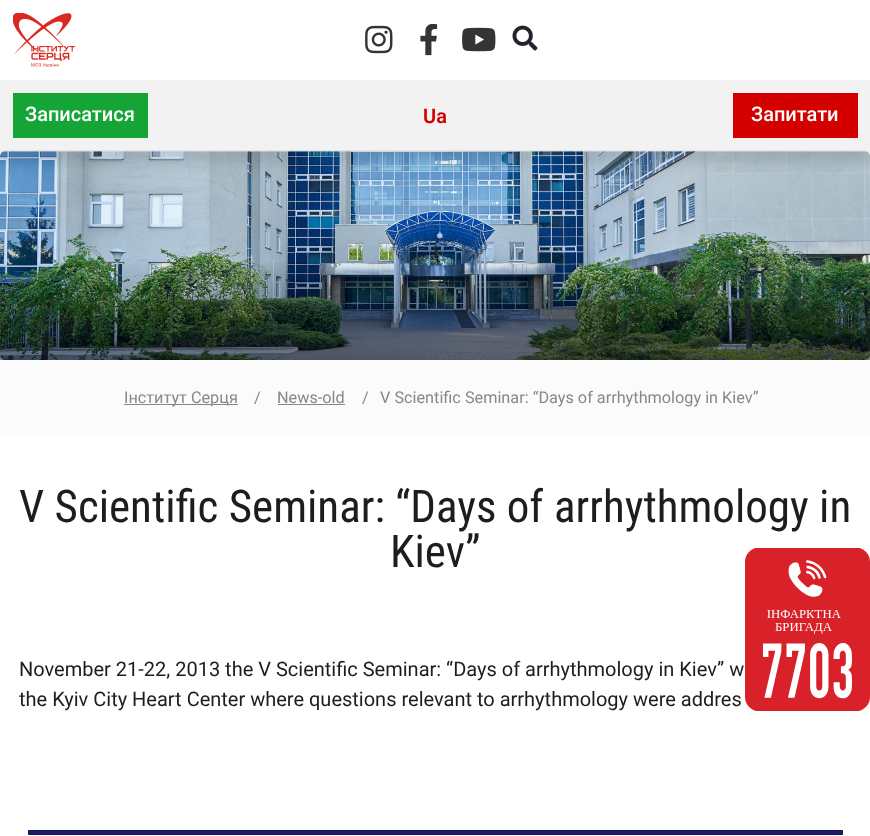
<svg xmlns="http://www.w3.org/2000/svg" width="870" height="836">
<style>
.a{font:500 20px Roboto;fill:#fff}
.b{font:600 20px Roboto;fill:#d40000}
.c{font:16.25px Roboto;fill:#888}
.d{font:45px Roboto Condensed;fill:#1d1d1b}
.e{font:20px Roboto;fill:#1d1d1b}
</style>
<defs>
<linearGradient id="g1" gradientUnits="userSpaceOnUse" x1="435" y1="151" x2="435" y2="360"><stop offset="0.51" stop-color="#000" stop-opacity="0"/><stop offset="0.81" stop-color="#000" stop-opacity="0.31"/><stop offset="1" stop-color="#000" stop-opacity="0.5"/></linearGradient>
</defs>
<rect width="100%" height="100%" fill="#fff"/>
<image href="1.png" x="13" y="13" width="62" height="54"/>
<image href="2.png" x="365" y="25" width="28" height="29"/>
<image href="3.png" x="420" y="23" width="18" height="33"/>
<image href="4.png" x="462" y="27" width="34" height="25"/>
<image href="5.png" x="512" y="25" width="26" height="26"/>
<image href="7.png" x="0" y="151" width="870" height="209"/>
<path fill="#0000001a" filter="blur(6px)" d="M0 93h870v70H0z"/>
<path fill="#f2f2f2" d="M0 80h870v70H0z"/>
<path fill="#15a536" d="M13 93h135v45H13z"/>
<path fill="#d40000" d="M733 93h125v45H733z"/>
<image href="6.png" x="745" y="548" width="125" height="163"/>
<path fill="url(#g1)" d="M0 262h870v98H0z"/>
<path fill="#fbfbfb" d="M0 360h870v75H0z"/>
<path fill="#888" d="M124 404h114v1H124z"/>
<path fill="#888" d="M278 404h67v1H278z"/>
<path fill="#29156e" stroke="#002047" d="M28.5 830.5h814v4H28.5z"/>
<text class="a" x="25" y="121">Записатися</text>
<text class="b" x="423" y="123">Ua</text>
<text class="a" x="751" y="121">Запитати</text>
<text class="c" x="124" y="403">Інститут Серця</text>
<text class="c" x="254" y="403">/</text>
<text class="c" x="277" y="403">News-old</text>
<text class="c" x="362" y="403">/</text>
<text class="c" x="380" y="403">V Scientific Seminar: “Days of arrhythmology in Kiev”</text>
<text class="d" x="19" y="522">V Scientific Seminar: “Days of arrhythmology in</text>
<text class="d" x="390" y="567">Kiev”</text>
<text class="e" x="19" y="676">November 21-22, 2013 the V Scientific Seminar: “Days of arrhythmology in Kiev” w</text>
<text class="e" x="19" y="706">the Kyiv City Heart Center where questions relevant to arrhythmology were addres</text>
</svg>
